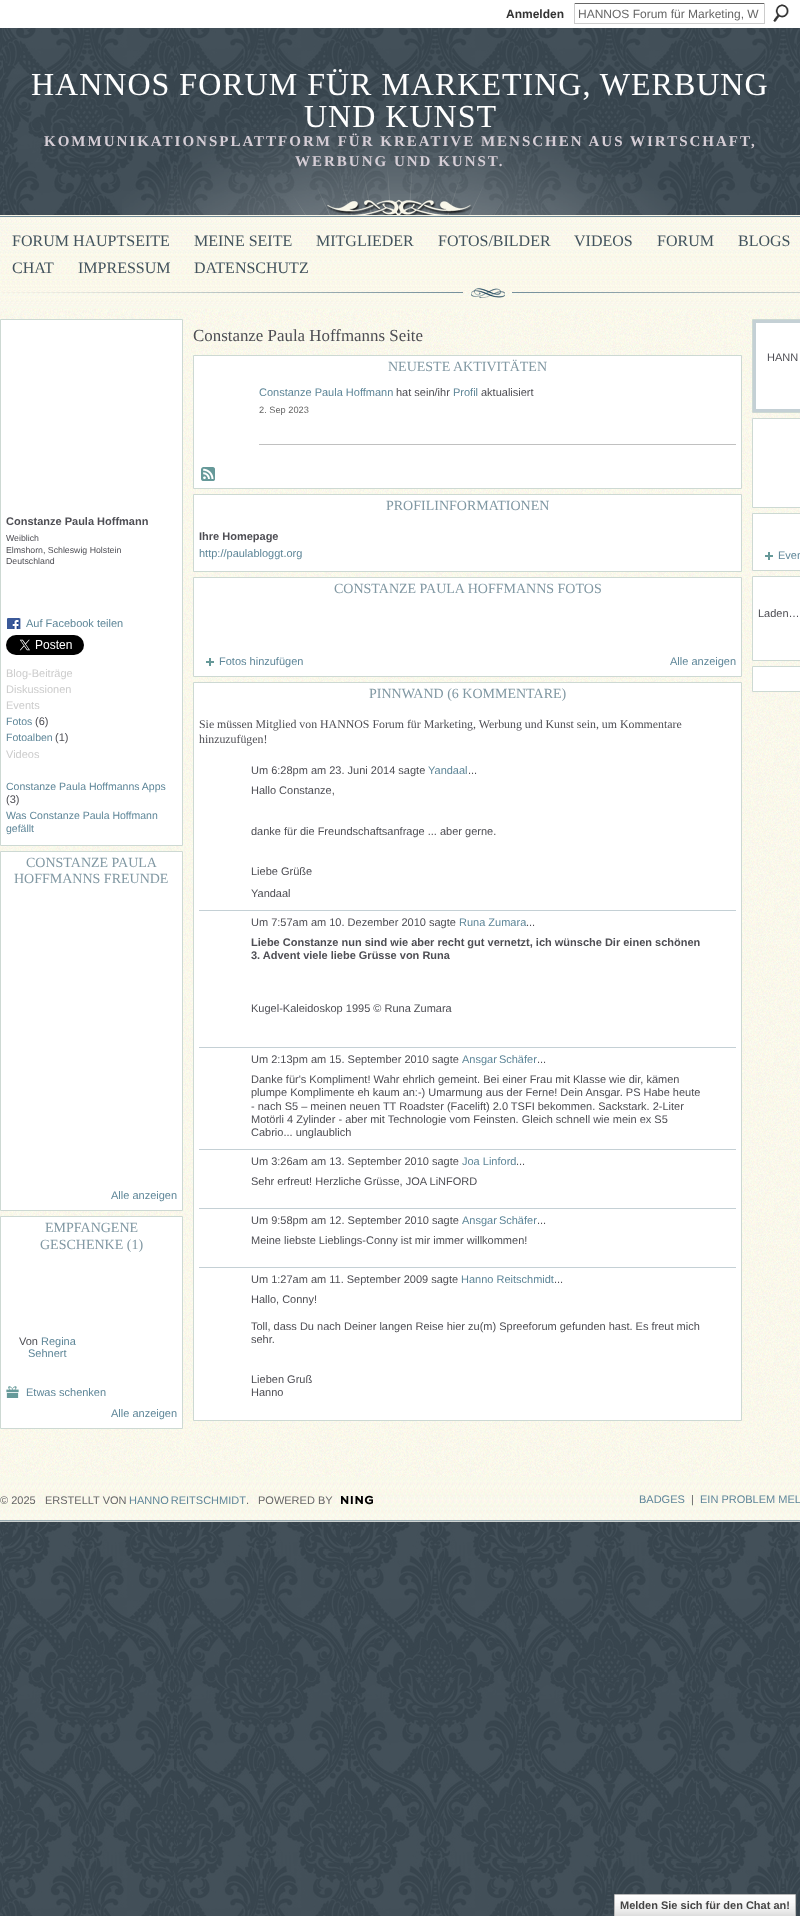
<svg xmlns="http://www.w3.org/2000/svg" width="800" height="1916">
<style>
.a{font:bold 12px Liberation Sans;fill:#333}
.b{font:12px Liberation Sans;fill:#666}
.c{font:32px Liberation Serif;letter-spacing:1px;fill:#fff}
.d{font:bold 15px Liberation Serif;letter-spacing:2px;fill:#d6ced6}
.e{font:16px Liberation Serif;fill:#42535d}
.f{font:bold 11px Liberation Sans;fill:#4e4e54}
.g{font:8.75px Liberation Sans;fill:#4e4e54}
.h{font:11px Liberation Sans;fill:#5e8698}
.i{font:11px Liberation Sans;fill:#ccc}
.j{font:10.5px Liberation Sans;fill:#5e8698}
.k{font:11px Liberation Sans;fill:#4e4e54}
.l{font:14px Liberation Serif;fill:#8198a3}
.m{font:16.9px Liberation Serif;fill:#4e4e54}
.n{font:9.25px Liberation Sans;fill:#666}
.o{font:11.85px Liberation Serif;fill:#4e4e54}
.p{font:11px Liberation Sans;fill:#666}
.q{font:bold 11px Liberation Sans;fill:#454545}
</style>
<rect width="100%" height="100%" fill="#42525c"/>
<image href="1.png" x="0" y="28" width="800" height="1888"/>
<path fill="#fff" d="M0 0h800v28H0z"/>
<path fill="#666" d="M574 3h191v1H574z"/>
<path fill="#ccc" d="M764 3h1v21H764z"/>
<path fill="#ccc" d="M574 23h191v1H574z"/>
<path fill="#ccc" d="M574 3h1v21H574z"/>
<image href="2.png" x="773" y="4" width="16" height="18"/>
<image href="3.png" x="122" y="108" width="555" height="107"/>
<image href="4.png" x="327" y="199" width="145" height="16"/>
<image href="5.png" x="0" y="215" width="800" height="94"/>
<image href="6.png" x="0" y="288" width="800" height="10"/>
<image href="7.png" x="0" y="309" width="800" height="1168"/>
<path fill="#fff" stroke="#cdd9d3" d="M0.5 319.5h182v526H0.5z"/>
<image href="8.png" x="7" y="618" width="14" height="11"/>
<image href="9.png" x="6" y="635" width="78" height="20"/>
<path fill="#fff" stroke="#cdd9d3" d="M0.5 851.5h182v359H0.5z"/>
<path fill="#fff" stroke="#cdd9d3" d="M0.5 1216.5h182v212H0.5z"/>
<image href="10.png" x="6" y="1386" width="13" height="12"/>
<path fill="#fff" stroke="#cdd9d3" d="M193.5 355.5h548v133H193.5z"/>
<path fill="#c0c0c0" d="M259 444h477v1H259z"/>
<image href="11.png" x="201" y="467" width="14" height="14"/>
<path fill="#fff" stroke="#cdd9d3" d="M193.5 494.5h548v77H193.5z"/>
<path fill="#fff" stroke="#cdd9d3" d="M193.5 577.5h548v99H193.5z"/>
<image href="12.png" x="206" y="658" width="8" height="8"/>
<path fill="#fff" stroke="#cdd9d3" d="M193.5 682.5h548v738H193.5z"/>
<path fill="#c4d0d5" d="M199 910h537v1H199z"/>
<path fill="#c4d0d5" d="M199 1047h537v1H199z"/>
<path fill="#c4d0d5" d="M199 1149h537v1H199z"/>
<path fill="#c4d0d5" d="M199 1208h537v1H199z"/>
<path fill="#c4d0d5" d="M199 1267h537v1H199z"/>
<path fill="#fff" d="M756 323h44v86H756z"/>
<path fill="none" stroke="#cdd9d3" d="M752.5 319.5h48v93H752.5z"/>
<path fill="none" stroke="#c4d0d5" stroke-width="3" d="M754.5 321.5h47v89H754.5z"/>
<path fill="#fff" stroke="#cdd9d3" d="M752.5 418.5h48v89H752.5z"/>
<path fill="#fff" stroke="#cdd9d3" d="M752.5 513.5h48v57H752.5z"/>
<image href="12.png" x="765" y="552" width="8" height="8"/>
<path fill="#fff" stroke="#cdd9d3" d="M752.5 576.5h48v84H752.5z"/>
<path fill="#fff" stroke="#cdd9d3" d="M752.5 666.5h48v25H752.5z"/>
<image href="13.png" x="0" y="1477" width="800" height="45"/>
<image href="14.png" x="341" y="1495" width="32" height="10"/>
<image href="15.png" x="615" y="1895" width="180" height="21"/>
<path fill="none" stroke="#b7b7b7" d="M614.5 1894.5h181v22H614.5z"/>
<text class="a" x="506" y="18">Anmelden</text>
<text class="b" x="578" y="18">HANNOS Forum für Marketing, W</text>
<text class="c" x="31" y="95">HANNOS FORUM FÜR MARKETING, WERBUNG</text>
<text class="c" x="304" y="127">UND KUNST</text>
<text class="d" x="44" y="146">KOMMUNIKATIONSPLATTFORM FÜR KREATIVE MENSCHEN AUS WIRTSCHAFT,</text>
<text class="d" x="295" y="166">WERBUNG UND KUNST.</text>
<text class="e" x="12" y="246">FORUM HAUPTSEITE</text>
<text class="e" x="194" y="246">MEINE SEITE</text>
<text class="e" x="316" y="246">MITGLIEDER</text>
<text class="e" x="438" y="246">FOTOS/BILDER</text>
<text class="e" x="574" y="246">VIDEOS</text>
<text class="e" x="657" y="246">FORUM</text>
<text class="e" x="738" y="246">BLOGS</text>
<text class="e" x="12" y="273">CHAT</text>
<text class="e" x="78" y="273">IMPRESSUM</text>
<text class="e" x="194" y="273">DATENSCHUTZ</text>
<text class="f" x="6" y="525">Constanze Paula Hoffmann</text>
<text class="g" x="6" y="541">Weiblich</text>
<text class="g" x="6" y="553">Elmshorn, Schleswig Holstein</text>
<text class="g" x="6" y="564">Deutschland</text>
<text class="h" x="26" y="627">Auf Facebook teilen</text>
<text class="i" x="6" y="677">Blog-Beiträge</text>
<text class="i" x="6" y="693">Diskussionen</text>
<text class="i" x="6" y="709">Events</text>
<text class="j" x="6" y="725">Fotos</text>
<text class="k" x="35" y="725">(6)</text>
<text class="j" x="6" y="741">Fotoalben</text>
<text class="k" x="55" y="741">(1)</text>
<text class="i" x="6" y="758">Videos</text>
<text class="j" x="6" y="790">Constanze Paula Hoffmanns Apps</text>
<text class="k" x="6" y="803">(3)</text>
<text class="j" x="6" y="819">Was Constanze Paula Hoffmann</text>
<text class="j" x="6" y="832">gefällt</text>
<text class="l" x="26" y="867">CONSTANZE PAULA</text>
<text class="l" x="14" y="883">HOFFMANNS FREUNDE</text>
<text class="h" x="111" y="1199">Alle anzeigen</text>
<text class="l" x="45" y="1232">EMPFANGENE</text>
<text class="l" x="40" y="1249">GESCHENKE (1)</text>
<text class="k" x="19" y="1345">Von</text>
<text class="h" x="41" y="1345">Regina</text>
<text class="h" x="28" y="1357">Sehnert</text>
<text class="h" x="26" y="1396">Etwas schenken</text>
<text class="h" x="111" y="1417">Alle anzeigen</text>
<text class="m" x="193" y="341">Constanze Paula Hoffmanns Seite</text>
<text class="l" x="388" y="371">NEUESTE AKTIVITÄTEN</text>
<text class="h" x="259" y="396">Constanze Paula Hoffmann</text>
<text class="k" x="396" y="396">hat sein/ihr</text>
<text class="h" x="453" y="396">Profil</text>
<text class="k" x="481" y="396">aktualisiert</text>
<text class="n" x="259" y="413">2. Sep 2023</text>
<text class="l" x="386" y="510">PROFILINFORMATIONEN</text>
<text class="f" x="199" y="540">Ihre Homepage</text>
<text class="h" x="199" y="557">http://paulabloggt.org</text>
<text class="l" x="334" y="593">CONSTANZE PAULA HOFFMANNS FOTOS</text>
<text class="h" x="219" y="665">Fotos hinzufügen</text>
<text class="h" x="670" y="665">Alle anzeigen</text>
<text class="l" x="369" y="698">PINNWAND (6 KOMMENTARE)</text>
<text class="o" x="199" y="728">Sie müssen Mitglied von HANNOS Forum für Marketing, Werbung und Kunst sein, um Kommentare</text>
<text class="o" x="199" y="743">hinzuzufügen!</text>
<text class="k" x="251" y="774">Um 6:28pm am 23. Juni 2014 sagte</text>
<text class="h" x="428" y="774">Yandaal</text>
<text class="k" x="468" y="774">...</text>
<text class="k" x="251" y="794">Hallo Constanze,</text>
<text class="k" x="251" y="835">danke für die Freundschaftsanfrage ... aber gerne.</text>
<text class="k" x="251" y="875">Liebe Grüße</text>
<text class="k" x="251" y="897">Yandaal</text>
<text class="k" x="251" y="926">Um 7:57am am 10. Dezember 2010 sagte</text>
<text class="h" x="459" y="926">Runa Zumara</text>
<text class="k" x="526" y="926">...</text>
<text class="f" x="251" y="946">Liebe Constanze nun sind wie aber recht gut vernetzt, ich wünsche Dir einen schönen</text>
<text class="f" x="251" y="959">3. Advent viele liebe Grüsse von Runa</text>
<text class="k" x="251" y="1012">Kugel-Kaleidoskop 1995 © Runa Zumara</text>
<text class="k" x="251" y="1063">Um 2:13pm am 15. September 2010 sagte</text>
<text class="h" x="462" y="1063" word-spacing="-1">Ansgar Schäfer</text>
<text class="k" x="537" y="1063">...</text>
<text class="k" x="251" y="1083">Danke für's Kompliment! Wahr ehrlich gemeint. Bei einer Frau mit Klasse wie dir, kämen</text>
<text class="k" x="251" y="1096">plumpe Komplimente eh kaum an:-) Umarmung aus der Ferne! Dein Ansgar. PS Habe heute</text>
<text class="k" x="251" y="1110">- nach S5 – meinen neuen TT Roadster (Facelift) 2.0 TSFI bekommen. Sackstark. 2-Liter</text>
<text class="k" x="251" y="1123">Motörli 4 Zylinder - aber mit Technologie vom Feinsten. Gleich schnell wie mein ex S5</text>
<text class="k" x="251" y="1136">Cabrio... unglaublich</text>
<text class="k" x="251" y="1165">Um 3:26am am 13. September 2010 sagte</text>
<text class="h" x="462" y="1165">Joa Linford</text>
<text class="k" x="516" y="1165">...</text>
<text class="k" x="251" y="1185">Sehr erfreut! Herzliche Grüsse, JOA LiNFORD</text>
<text class="k" x="251" y="1224">Um 9:58pm am 12. September 2010 sagte</text>
<text class="h" x="462" y="1224" word-spacing="-1">Ansgar Schäfer</text>
<text class="k" x="537" y="1224">...</text>
<text class="k" x="251" y="1244">Meine liebste Lieblings-Conny ist mir immer willkommen!</text>
<text class="k" x="251" y="1283">Um 1:27am am 11. September 2009 sagte</text>
<text class="h" x="461" y="1283">Hanno Reitschmidt</text>
<text class="k" x="554" y="1283">...</text>
<text class="k" x="251" y="1303">Hallo, Conny!</text>
<text class="k" x="251" y="1330">Toll, dass Du nach Deiner langen Reise hier zu(m) Spreeforum gefunden hast. Es freut mich</text>
<text class="k" x="251" y="1343">sehr.</text>
<text class="k" x="251" y="1383">Lieben Gruß</text>
<text class="k" x="251" y="1396">Hanno</text>
<text class="k" x="767" y="361">HANN</text>
<text class="h" x="778" y="559">Even</text>
<text class="k" x="758" y="617">Laden…</text>
<text class="p" x="0" y="1504">© 2025</text>
<text class="p" x="45" y="1504">ERSTELLT VON</text>
<text class="h" x="129" y="1504" word-spacing="-1">HANNO REITSCHMIDT</text>
<text class="p" x="246" y="1504">.</text>
<text class="p" x="258" y="1504">POWERED BY</text>
<text class="h" x="639" y="1503">BADGES</text>
<text class="p" x="691" y="1503">|</text>
<text class="h" x="700" y="1503">EIN PROBLEM MEL</text>
<text class="q" x="620" y="1909">Melden Sie sich für den Chat an!</text>
</svg>
